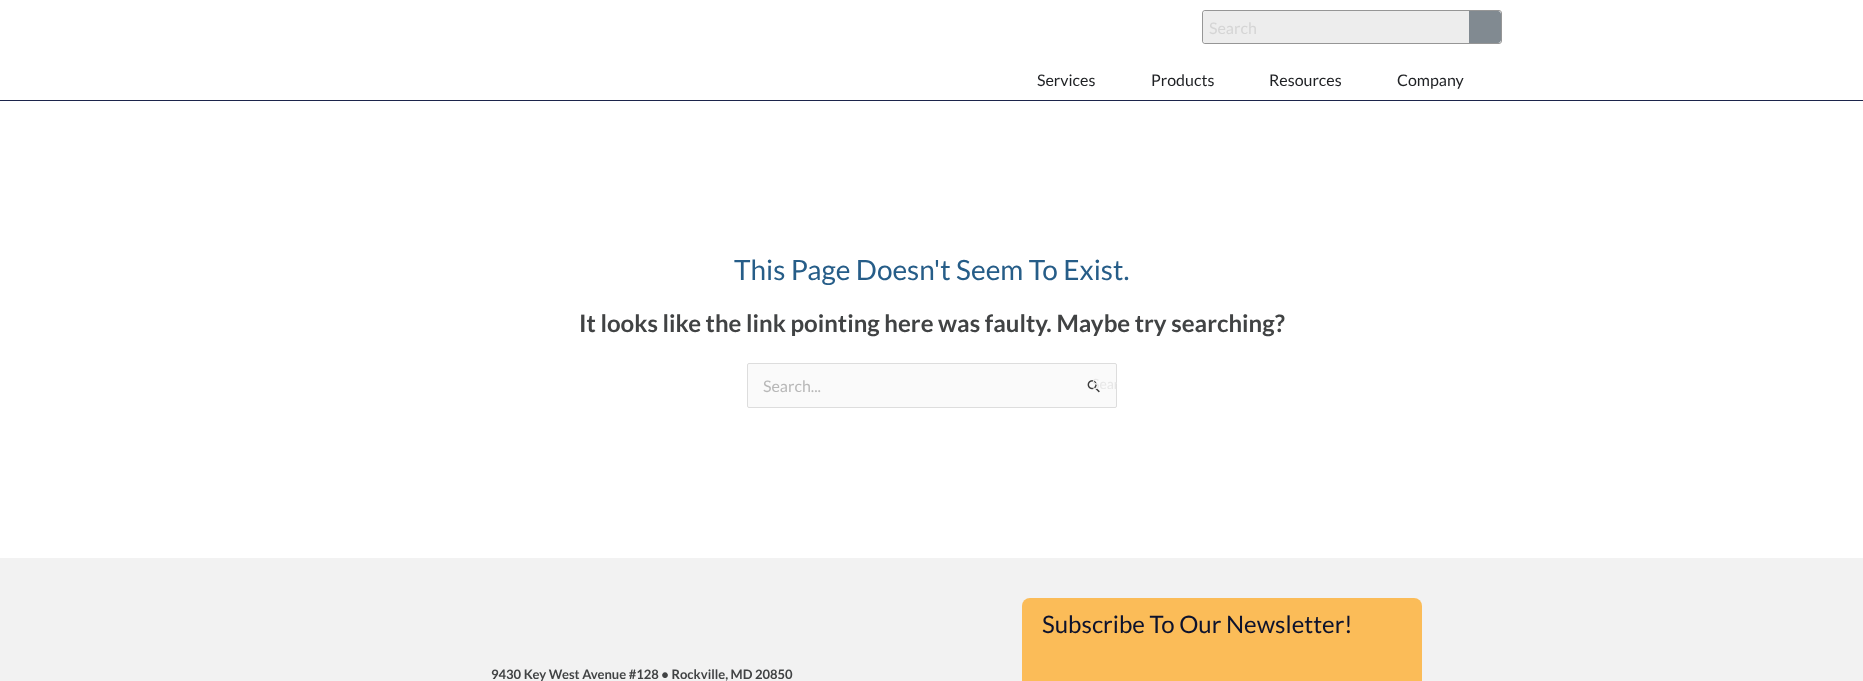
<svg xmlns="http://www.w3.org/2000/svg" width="1863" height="681">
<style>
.a{font:16px Lato;fill:#d5d5d5}
.b{font:16px Lato;fill:#1f2124}
.c{font:28px Lato;fill:#265d88}
.d{font:bold 24px Lato;fill:#414344}
.e{font:16px Lato;fill:#b8b8b8}
.f{font:14px Lato;fill:#e7e7e7}
.g{font:24px Lato;fill:#0c122d}
.h{font:bold 13px Lato;fill:#414344}
</style>
<defs>
<clipPath id="clip1"><rect x="1072" y="363" width="45" height="42" rx="2"/></clipPath>
</defs>
<rect width="100%" height="100%" fill="#fff"/>
<path fill="#1c244b" d="M0 100h1863v1H0z"/>
<rect fill="none" stroke="#969696" x="1202.5" y="10.5" width="299" height="33" rx="2.5"/>
<path fill="#ededed" d="M1206 11h263v32h-263c-1.5 0-3-1.5-3-3v-26c0-1.5 1.5-3 3-3z"/>
<path fill="#818a91" d="M1469 11h29c1.5 0 3 1.5 3 3v26c0 1.5-1.5 3-3 3h-29z"/>
<rect fill="#fafafa" stroke="#ddd" x="747.5" y="363.5" width="369" height="44" rx="1.5"/>
<image href="1.png" x="1087" y="380" width="13" height="13"/>
<path fill="#f2f2f2" d="M0 558h1863v123H0z"/>
<rect fill="#fbbc58" x="1022" y="598" width="400" height="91" rx="8"/>
<text class="a" x="1209" y="34">Search</text>
<text class="b" x="1037" y="86">Services</text>
<text class="b" x="1151" y="86">Products</text>
<text class="b" x="1269" y="86">Resources</text>
<text class="b" x="1397" y="86">Company</text>
<text class="c" x="734" y="280">This Page Doesn't Seem To Exist.</text>
<text class="d" x="579" y="332">It looks like the link pointing here was faulty. Maybe try searching?</text>
<text class="e" x="763" y="392">Search...</text>
<g clip-path="url(#clip1)">
<text class="f" x="1092" y="389">Sear</text>
</g>
<text class="g" x="1042" y="633">Subscribe To Our Newsletter!</text>
<text class="h" x="491" y="679">9430 Key West Avenue #128 • Rockville, MD 20850</text>
</svg>
